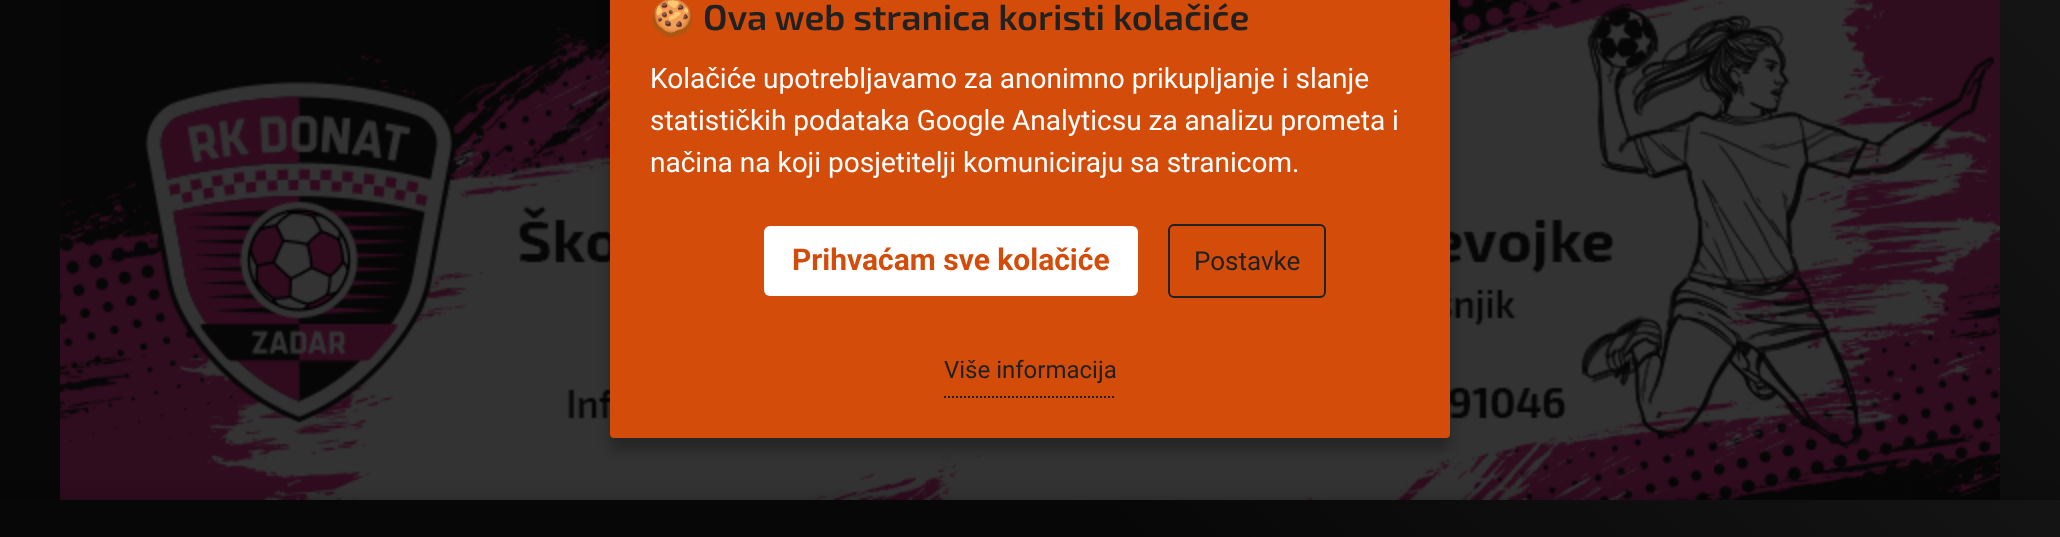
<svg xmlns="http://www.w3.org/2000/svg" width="2060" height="537">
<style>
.a{font:36px Noto Color Emoji;fill:#212121}
.b{font:600 36px 'Exo 2';fill:#212121}
.c{font:28px Roboto;fill:#fff}
.d{font:24px Roboto;fill:#212121}
.e{font:bold 30px Roboto;fill:#d34c09}
.f{font:26px Roboto;fill:#212121}
</style>
<defs>
<linearGradient id="g1" gradientUnits="userSpaceOnUse" x1="390" y1="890" x2="1670" y2="-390"><stop offset="0.58" stop-color="#070707"/><stop offset="1" stop-color="#141414"/></linearGradient>
<linearGradient id="g2" gradientUnits="userSpaceOnUse" x1="436" y1="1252" x2="1624" y2="64"><stop offset="0.58" stop-color="#070707"/><stop offset="1" stop-color="#141414"/></linearGradient>
</defs>
<rect width="100%" height="100%" fill="#fff"/>
<path fill="url(#g1)" d="M0 0h2060v500H0z"/>
<image href="1.png" x="60" y="0" width="1940" height="500"/>
<rect fill="#00000040" filter="blur(6px)" x="610" y="-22" width="840" height="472" rx="4"/>
<rect fill="#d34c09" x="610" y="-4" width="840" height="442" rx="4"/>
<path fill="none" stroke="#212121" stroke-width="2" stroke-dasharray="2 2" d="M944 397h172"/>
<rect fill="#fff" x="764" y="226" width="374" height="70" rx="6"/>
<rect fill="none" stroke="#212121" stroke-width="2" x="1169" y="225" width="156" height="72" rx="5"/>
<path fill="#0000004d" filter="blur(10px)" d="M0 502h2060v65H0z"/>
<path fill="url(#g2)" d="M0 500h2060v37H0z"/>
<text class="a" x="650" y="30">🍪</text>
<text class="b" x="703" y="30">Ova web stranica koristi kolačiće</text>
<text class="c" x="650" y="88">Kolačiće upotrebljavamo za anonimno prikupljanje i slanje</text>
<text class="c" x="650" y="130">statističkih podataka Google Analyticsu za analizu prometa i</text>
<text class="c" x="650" y="172">načina na koji posjetitelji komuniciraju sa stranicom.</text>
<text class="d" x="944" y="378">Više informacija</text>
<text class="e" x="792" y="270">Prihvaćam sve kolačiće</text>
<text class="f" x="1194" y="270">Postavke</text>
</svg>
